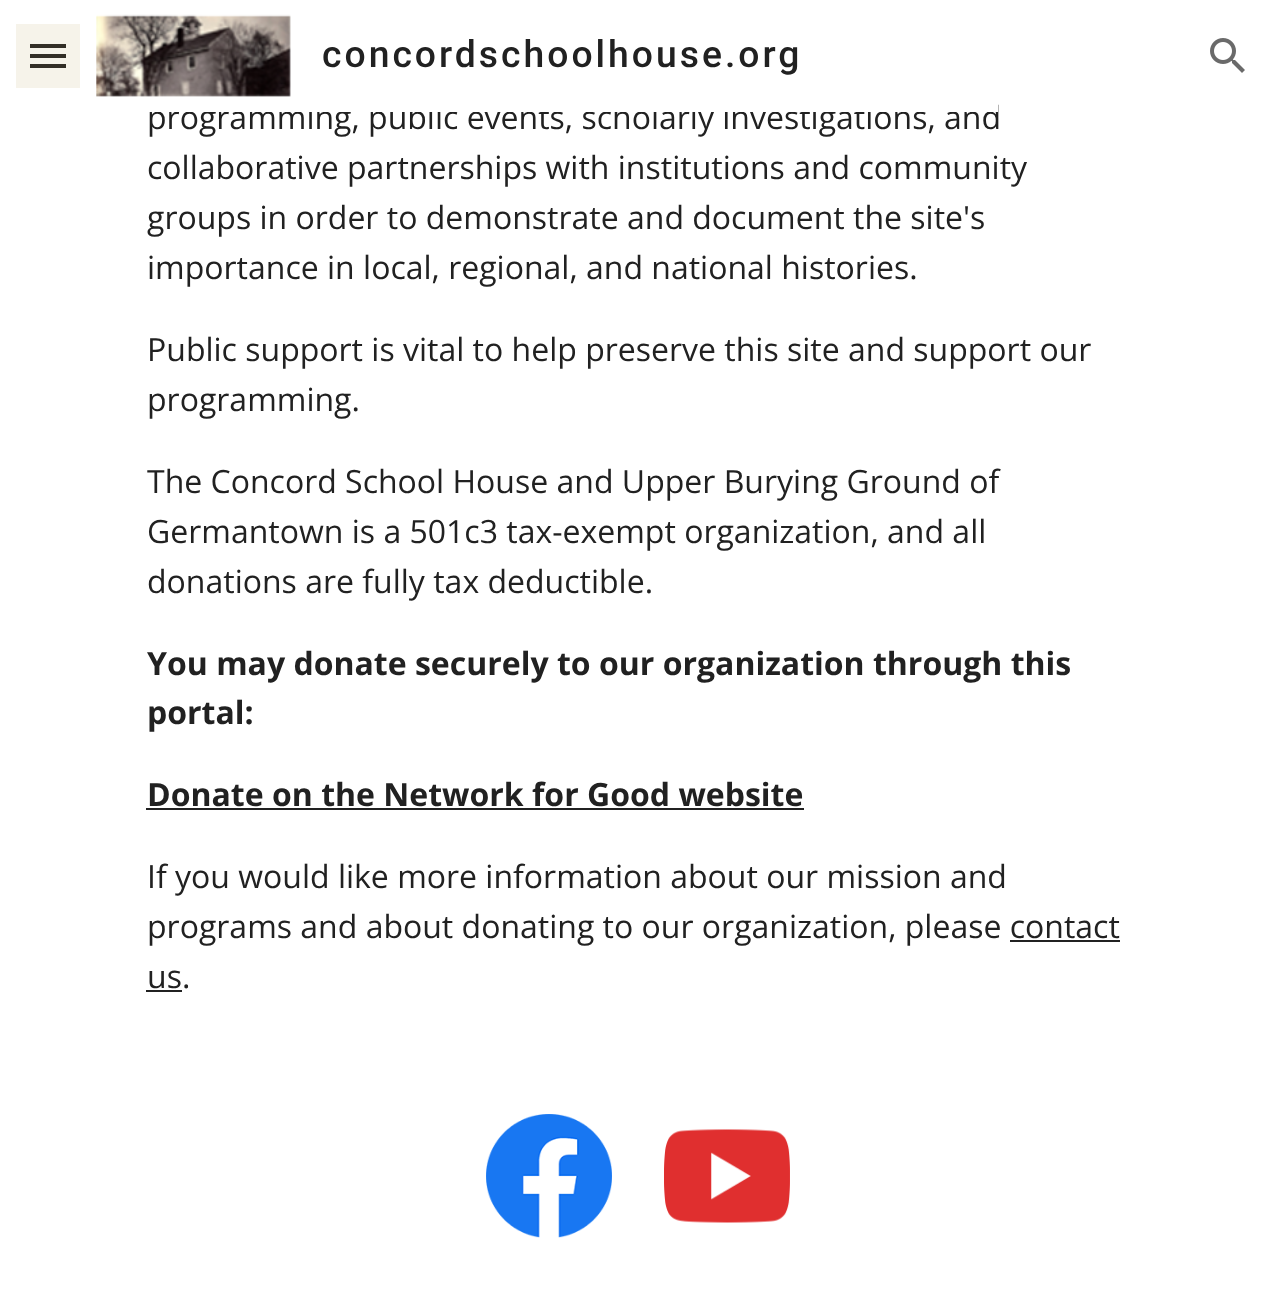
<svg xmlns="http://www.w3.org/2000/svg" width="1275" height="1306">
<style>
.a{font:500 37.3px Roboto;letter-spacing:3px;fill:#212121}
.b{font:32px Open Sans;fill:#212121}
.c{font:bold 32px Open Sans;fill:#212121}
</style>
<rect width="100%" height="100%" fill="#fff"/>
<path fill="#f6f3ea" d="M16 24h64v64H16z"/>
<path fill="#332f27" d="M30 44h36v4H30z"/>
<path fill="#332f27" d="M30 54h36v4H30z"/>
<path fill="#332f27" d="M30 64h36v4H30z"/>
<image href="1.png" x="96" y="14" width="195" height="83"/>
<image href="2.png" x="1210" y="38" width="35" height="35"/>
<path fill="#212121" d="M146 808h658v2H146z"/>
<path fill="#212121" d="M1010 940h110v2H1010z"/>
<path fill="#212121" d="M146 990h36v2H146z"/>
<image href="3.png" x="486" y="1114" width="126" height="124"/>
<image href="4.png" x="664" y="1129" width="126" height="94"/>
<text class="a" x="322" y="67">concordschoolhouse.org</text>
<text class="b" x="147" y="129">programming, public events, scholarly investigations, and</text>
<path fill="#fff" d="M149 104h849v8H149z"/>
<text class="b" x="147" y="179">collaborative partnerships with institutions and community</text>
<text class="b" x="147" y="229">groups in order to demonstrate and document the site's</text>
<text class="b" x="147" y="279">importance in local, regional, and national histories.</text>
<text class="b" x="147" y="361">Public support is vital to help preserve this site and support our</text>
<text class="b" x="147" y="411">programming.</text>
<text class="b" x="147" y="493">The Concord School House and Upper Burying Ground of</text>
<text class="b" x="147" y="543">Germantown is a 501c3 tax-exempt organization, and all</text>
<text class="b" x="147" y="593">donations are fully tax deductible.</text>
<text class="c" x="147" y="675">You may donate securely to our organization through this</text>
<text class="c" x="147" y="724">portal:</text>
<text class="c" x="147" y="806">Donate on the Network for Good website</text>
<text class="b" x="147" y="888">If you would like more information about our mission and</text>
<text class="b" x="147" y="938">programs and about donating to our organization, please contact</text>
<text class="b" x="147" y="988">us.</text>
</svg>
